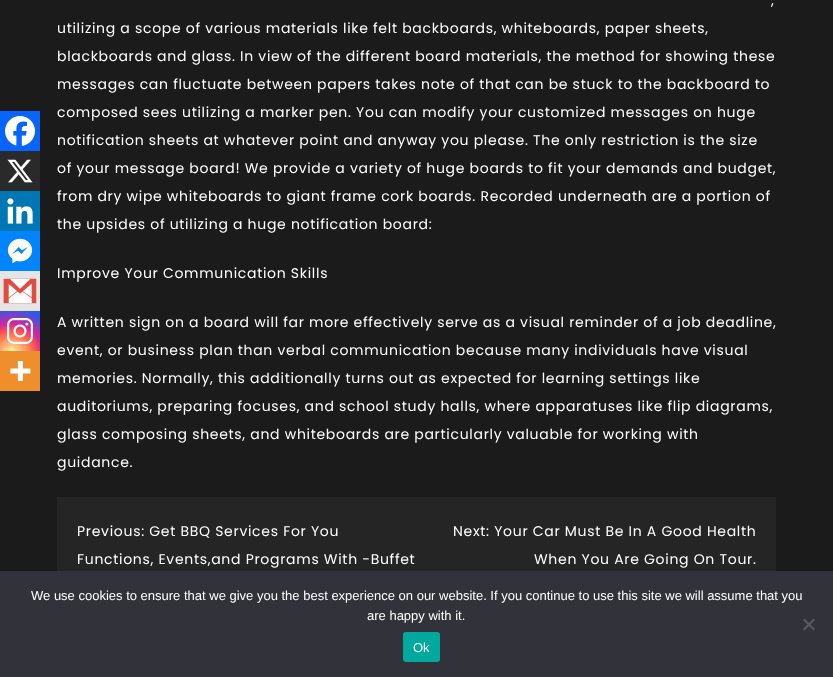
<svg xmlns="http://www.w3.org/2000/svg" width="833" height="677">
<style>
.a{font:14px Poppins;letter-spacing:0.7px;fill:#fff}
.b{font:13px Liberation Sans;fill:#fff}
</style>
<defs>
<radialGradient id="g1" gradientUnits="userSpaceOnUse" cx="12" cy="354" r="51"><stop offset="0" stop-color="#fdf497"/><stop offset="0.05" stop-color="#fdf497"/><stop offset="0.45" stop-color="#fd5949"/><stop offset="0.6" stop-color="#d6249f"/><stop offset="0.9" stop-color="#285aeb"/></radialGradient>
</defs>
<rect width="100%" height="100%" fill="#1b1b1b"/>
<path fill="#0765fe" d="M0 111h40v40H0z"/>
<image href="1.png" x="5" y="116" width="30" height="30"/>
<path fill="#2a2a2a" d="M0 151h40v40H0z"/>
<image href="2.png" x="7" y="159" width="26" height="24"/>
<path fill="#0077b5" d="M0 191h40v40H0z"/>
<image href="3.png" x="7" y="198" width="26" height="26"/>
<path fill="#0084ff" d="M0 231h40v40H0z"/>
<image href="4.png" x="7" y="238" width="26" height="26"/>
<path fill="#e5e5e5" d="M0 271h40v40H0z"/>
<image href="5.png" x="3" y="278" width="34" height="26"/>
<path fill="url(#g1)" d="M0 311h40v40H0z"/>
<image href="6.png" x="7" y="318" width="26" height="26"/>
<path fill="#ee8e2d" d="M0 351h40v40H0z"/>
<image href="7.png" x="10" y="361" width="21" height="20"/>
<path fill="#262525" d="M57 497h719v74H57z"/>
<path fill="#32323a" d="M0 571h833v106H0z"/>
<path fill="#59595d" d="M813.5 618.5l1.5 1.5l-10.5 10.5l-1.5-1.5z"/>
<path fill="#59595d" d="M803 620l1.5-1.5l10.5 10.5l-1.5 1.5z"/>
<rect fill="#00a99d" x="403" y="632" width="37" height="30" rx="3"/>
<text class="a" x="771" y="5">,</text>
<text class="a" x="57" y="33">utilizing a scope of various materials like felt backboards, whiteboards, paper sheets,</text>
<text class="a" x="57" y="61">blackboards and glass. In view of the different board materials, the method for showing these</text>
<text class="a" x="57" y="89">messages can fluctuate between papers takes note of that can be stuck to the backboard to</text>
<text class="a" x="57" y="117">composed sees utilizing a marker pen. You can modify your customized messages on huge</text>
<text class="a" x="57" y="145">notification sheets at whatever point and anyway you please. The only restriction is the size</text>
<text class="a" x="57" y="173">of your message board! We provide a variety of huge boards to fit your demands and budget,</text>
<text class="a" x="57" y="201">from dry wipe whiteboards to giant frame cork boards. Recorded underneath are a portion of</text>
<text class="a" x="57" y="229">the upsides of utilizing a huge notification board:</text>
<text class="a" x="57" y="278">Improve Your Communication Skills</text>
<text class="a" x="57" y="327">A written sign on a board will far more effectively serve as a visual reminder of a job deadline,</text>
<text class="a" x="57" y="355">event, or business plan than verbal communication because many individuals have visual</text>
<text class="a" x="57" y="383">memories. Normally, this additionally turns out as expected for learning settings like</text>
<text class="a" x="57" y="411">auditoriums, preparing focuses, and school study halls, where apparatuses like flip diagrams,</text>
<text class="a" x="57" y="439">glass composing sheets, and whiteboards are particularly valuable for working with</text>
<text class="a" x="57" y="467">guidance.</text>
<text class="a" x="77" y="536">Previous: Get BBQ Services For You</text>
<text class="a" x="77" y="564">Functions, Events,and Programs With -Buffet</text>
<text class="a" x="453" y="536">Next: Your Car Must Be In A Good Health</text>
<text class="a" x="534" y="564">When You Are Going On Tour.</text>
<text class="b" x="31" y="600">We use cookies to ensure that we give you the best experience on our website. If you continue to use this site we will assume that you</text>
<text class="b" x="367" y="620">are happy with it.</text>
<text class="b" x="413" y="652">Ok</text>
</svg>
